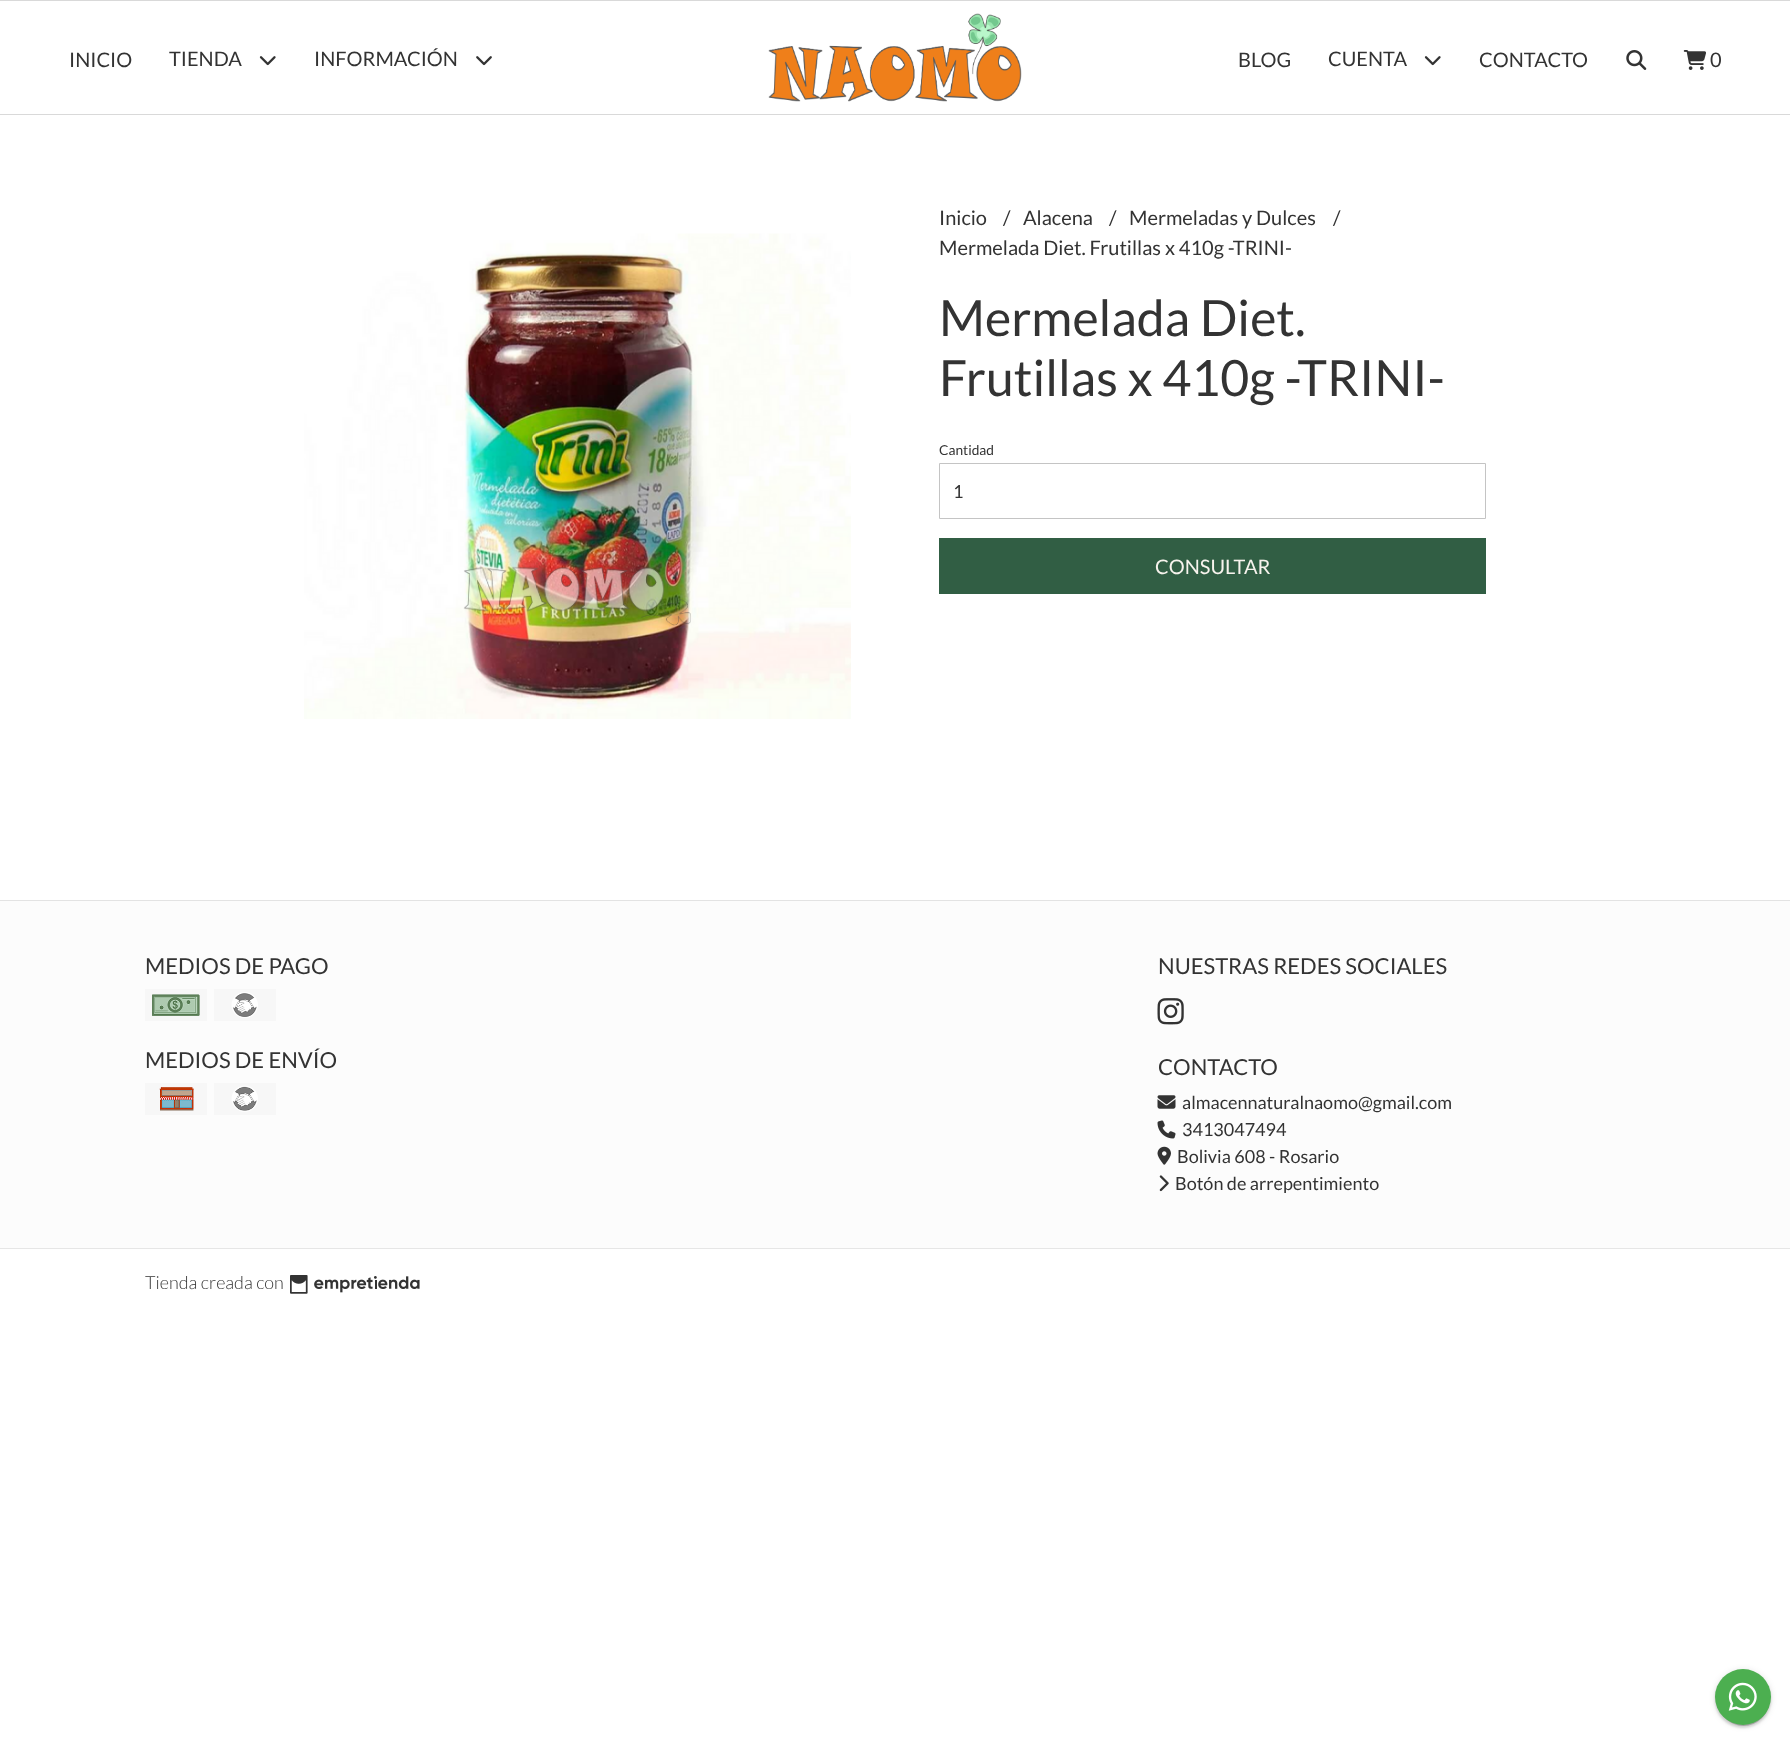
<svg xmlns="http://www.w3.org/2000/svg" width="1790" height="1743">
<style>
.a{font:20px Lato;fill:#333}
.b{font:50px Lato;fill:#333}
.c{font:13.75px Lato;fill:#333}
.d{font:18px Lato;fill:#333}
.e{font:20px Lato;fill:#f7f3ed}
.f{font:22px Lato;fill:#333}
.g{font:300 18px Lato;fill:#333}
</style>
<rect width="100%" height="100%" fill="#fff"/>
<path fill="#d9d9d9" d="M0 0h1790v1H0z"/>
<path fill="#d9d9d9" d="M0 114h1790v1H0z"/>
<image href="1.png" x="259" y="56" width="17" height="10"/>
<image href="2.png" x="476" y="56" width="16" height="10"/>
<image href="3.png" x="768" y="13" width="254" height="89"/>
<image href="1.png" x="1424" y="56" width="17" height="10"/>
<image href="4.png" x="1626" y="50" width="21" height="20"/>
<image href="5.png" x="1683" y="50" width="23" height="20"/>
<image href="6.png" x="304" y="233" width="547" height="486"/>
<path fill="none" stroke="#c4c4c4" d="M939.5 463.5h546v55H939.5z"/>
<path fill="#315e44" d="M939 538h547v56H939z"/>
<path fill="#fcfcfc" d="M0 901h1790v347H0z"/>
<path fill="#e3e3e3" d="M0 900h1790v1H0z"/>
<image href="7.png" x="145" y="989" width="62" height="32"/>
<image href="8.png" x="214" y="989" width="62" height="32"/>
<image href="9.png" x="145" y="1083" width="62" height="32"/>
<image href="10.png" x="214" y="1083" width="62" height="32"/>
<image href="11.png" x="1157" y="998" width="27" height="27"/>
<image href="12.png" x="1157" y="1095" width="19" height="14"/>
<image href="13.png" x="1157" y="1120" width="19" height="19"/>
<image href="14.png" x="1157" y="1146" width="14" height="19"/>
<image href="15.png" x="1159" y="1175" width="10" height="17"/>
<path fill="#e6e6e6" d="M0 1248h1790v1H0z"/>
<image href="16.png" x="290" y="1275" width="130" height="19"/>
<rect fill="#00000033" filter="blur(0.5px)" x="1718" y="1675" width="51" height="51" rx="25.5"/>
<rect fill="#0000001f" filter="blur(3px)" x="1715" y="1670" width="56" height="56" rx="28"/>
<rect fill="#00000024" filter="blur(1px)" x="1715" y="1671" width="56" height="57" rx="28"/>
<circle fill="#4caf50" cx="1743" cy="1697" r="28"/>
<image href="17.png" x="1728" y="1682" width="29" height="29"/>
<text class="a" x="69" y="67">INICIO</text>
<text class="a" x="169" y="66">TIENDA</text>
<text class="a" x="314" y="66">INFORMACIÓN</text>
<text class="a" x="1238" y="67">BLOG</text>
<text class="a" x="1328" y="66">CUENTA</text>
<text class="a" x="1479" y="67">CONTACTO</text>
<text class="a" x="1710" y="67">0</text>
<text class="a" x="939" y="225">Inicio</text>
<text class="a" x="1003" y="225">/</text>
<text class="a" x="1023" y="225">Alacena</text>
<text class="a" x="1109" y="225">/</text>
<text class="a" x="1129" y="225">Mermeladas y Dulces</text>
<text class="a" x="1333" y="225">/</text>
<text class="a" x="939" y="255">Mermelada Diet. Frutillas x 410g -TRINI-</text>
<text class="b" x="939" y="336">Mermelada Diet.</text>
<text class="b" x="939" y="396">Frutillas x 410g -TRINI-</text>
<text class="c" x="939" y="455">Cantidad</text>
<text class="d" x="953" y="498">1</text>
<text class="e" x="1155" y="574">CONSULTAR</text>
<text class="f" x="145" y="974">MEDIOS DE PAGO</text>
<text class="f" x="145" y="1068">MEDIOS DE ENVÍO</text>
<text class="f" x="1158" y="974">NUESTRAS REDES SOCIALES</text>
<text class="f" x="1158" y="1075">CONTACTO</text>
<text class="d" x="1182" y="1109">almacennaturalnaomo@gmail.com</text>
<text class="d" x="1182" y="1136">3413047494</text>
<text class="d" x="1177" y="1163">Bolivia 608 - Rosario</text>
<text class="d" x="1175" y="1190">Botón de arrepentimiento</text>
<text class="g" x="145" y="1289">Tienda creada con</text>
</svg>
